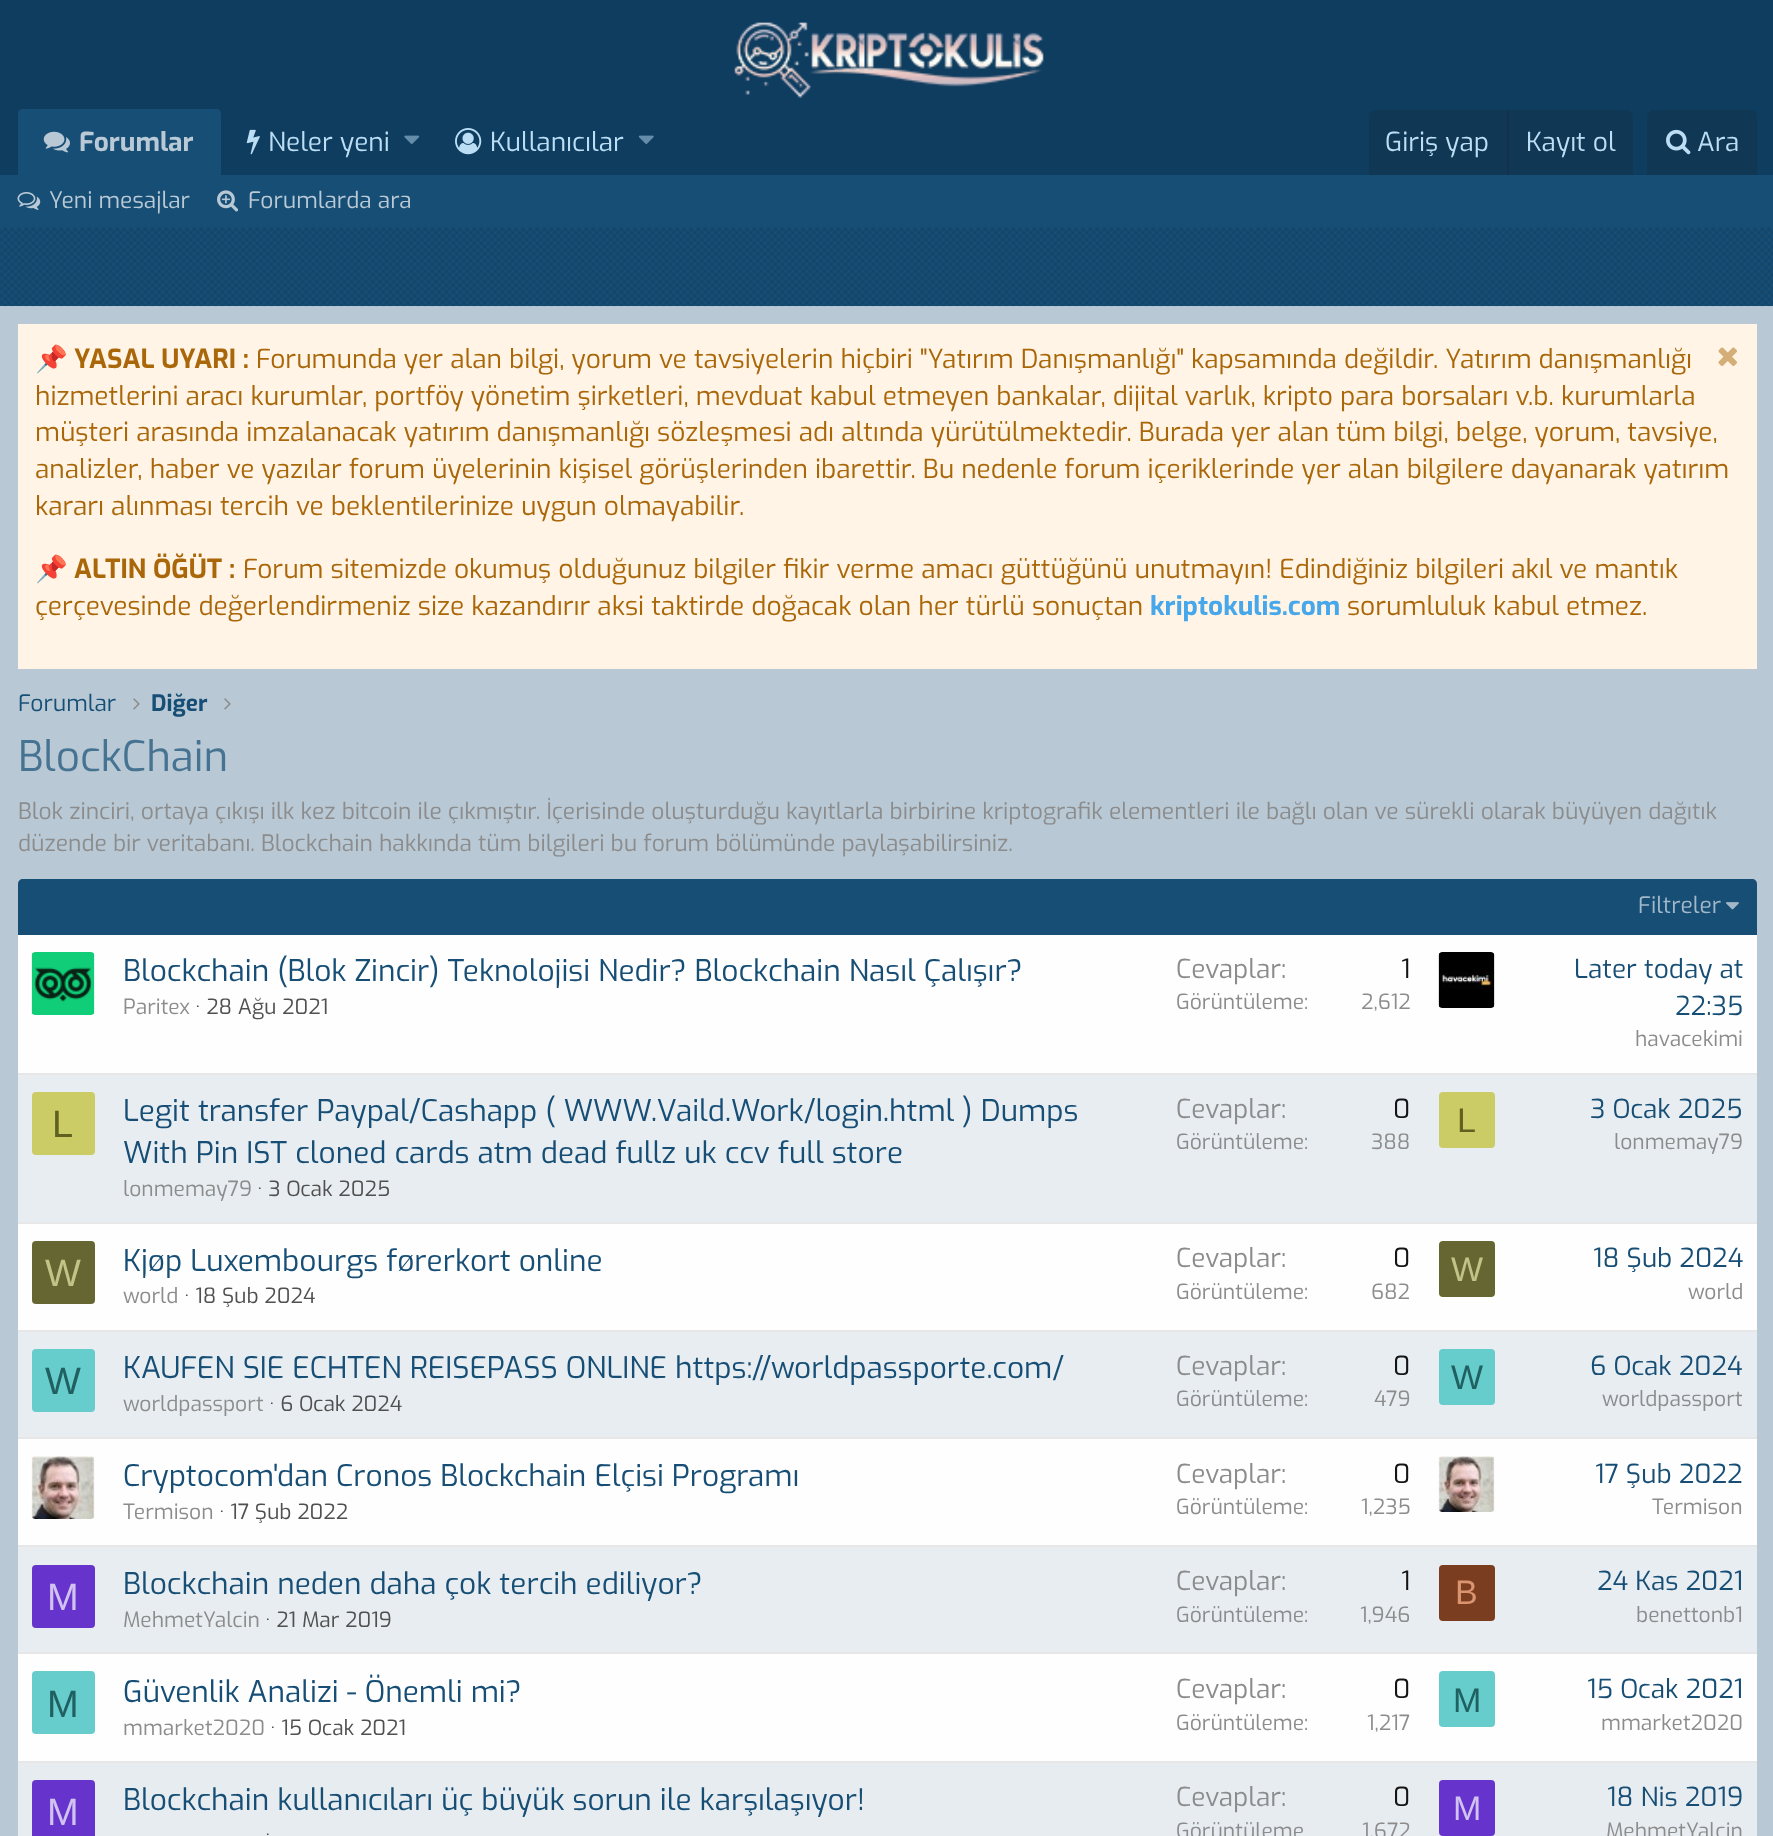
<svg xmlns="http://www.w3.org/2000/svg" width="1773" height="1836">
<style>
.a{font:bold 26.25px Exo;fill:#b9c9d5}
.b{font:26.25px Exo;fill:#bcdef5}
.c{font:22.75px Exo;fill:#b9c9d5}
.d{font:bold 26.25px Noto Color Emoji;fill:#aa6709}
.e{font:bold 26.25px Exo;fill:#aa6709}
.f{font:26.25px Exo;fill:#aa6709}
.g{font:bold 26.25px Exo;fill:#47a7eb}
.h{font:22.75px Exo;fill:#174e75}
.i{font:bold 22.75px Exo;fill:#174e75}
.j{font:42px Exo;fill:#477392}
.k{font:22.75px Exo;fill:#8c8c8c}
.l{font:22.75px Exo;fill:#a2b8c8}
.m{font:29.75px Exo;fill:#174e75}
.n{font:21px Exo;fill:#8c8c8c}
.o{font:21px Exo;fill:#505050}
.p{font:26.25px Exo;fill:#8c8c8c}
.q{font:26.25px Exo;fill:#141414}
.r{font:26.25px Exo;fill:#174e75}
.s{font:38px Liberation Sans;fill:#606020}
.t{font:34px Liberation Sans;fill:#606020}
.u{font:38px Liberation Sans;fill:#c3c388}
.v{font:34px Liberation Sans;fill:#c3c388}
.w{font:38px Liberation Sans;fill:#206060}
.x{font:34px Liberation Sans;fill:#206060}
.y{font:38px Liberation Sans;fill:#d1c2f0}
.z{font:34px Liberation Sans;fill:#db9470}
.a1{font:34px Liberation Sans;fill:#d1c2f0}
</style>
<rect width="100%" height="100%" fill="#b8c9d5"/>
<path fill="#0f3d5f" d="M0 0h1773v175H0z"/>
<image href="1.png" x="734" y="22" width="310" height="76"/>
<path fill="#174e75" d="M22 109h195c2 0 4 2 4 4v62h-203v-62c0-2 2-4 4-4z"/>
<image href="2.png" x="43" y="131" width="27" height="22"/>
<image href="3.png" x="246" y="129" width="14" height="26"/>
<image href="4.png" x="404" y="135" width="16" height="9"/>
<image href="5.png" x="455" y="128" width="27" height="27"/>
<image href="6.png" x="638" y="135" width="16" height="9"/>
<path fill="#103754" d="M1376 110h250c4 0 7 3 7 7v58h-264v-58c0-4 3-7 7-7z"/>
<path fill="#11324a" d="M1507 110h2v65H1507z"/>
<path fill="#103754" d="M1654 110h96c4 0 7 3 7 7v58h-110v-58c0-4 3-7 7-7z"/>
<image href="7.png" x="1666" y="129" width="25" height="26"/>
<path fill="#174e75" d="M0 175h1773v131H0z"/>
<image href="8.png" x="17" y="192" width="24" height="18"/>
<image href="9.png" x="217" y="190" width="22" height="22"/>
<image href="10.png" x="0" y="227" width="1773" height="80"/>
<path fill="#fff4e5" d="M18 324h1739v345H18z"/>
<image href="11.png" x="1718" y="347" width="19" height="19"/>
<image href="12.png" x="133" y="698" width="7" height="12"/>
<image href="12.png" x="224" y="698" width="7" height="12"/>
<rect fill="#fefefe" x="18" y="879" width="1739" height="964" rx="7"/>
<path fill="#174e75" d="M23 879h1729c3 0 5 2 5 5v51h-1739v-51c0-3 2-5 5-5z"/>
<image href="13.png" x="1726" y="902" width="13" height="8"/>
<image href="14.png" x="31" y="952" width="64" height="63"/>
<image href="15.png" x="1438" y="952" width="57" height="56"/>
<path fill="#e8edf1" d="M18 1075h1739v147H18z"/>
<path fill="#e7e7e7" d="M18 1073h1739v2H18z"/>
<rect fill="#cc6" x="32" y="1092" width="63" height="63" rx="4"/>
<rect fill="#cc6" x="1439" y="1092" width="56" height="56" rx="4"/>
<path fill="#e7e7e7" d="M18 1222h1739v2H18z"/>
<rect fill="#663" x="32" y="1241" width="63" height="63" rx="4"/>
<rect fill="#663" x="1439" y="1241" width="56" height="56" rx="4"/>
<path fill="#e7edf1" d="M18 1332h1739v105H18z"/>
<path fill="#e7e7e7" d="M18 1330h1739v2H18z"/>
<rect fill="#6cc" x="32" y="1349" width="63" height="63" rx="4"/>
<rect fill="#6cc" x="1439" y="1349" width="56" height="56" rx="4"/>
<path fill="#e7e7e7" d="M18 1437h1739v2H18z"/>
<image href="16.png" x="31" y="1456" width="64" height="63"/>
<image href="17.png" x="1438" y="1456" width="57" height="56"/>
<path fill="#e7edf1" d="M18 1547h1739v105H18z"/>
<path fill="#e7e7e7" d="M18 1545h1739v2H18z"/>
<rect fill="#63c" x="32" y="1565" width="63" height="63" rx="4"/>
<rect fill="#7a3d1f" x="1439" y="1565" width="56" height="56" rx="4"/>
<path fill="#e7e7e7" d="M18 1652h1739v2H18z"/>
<rect fill="#6cc" x="32" y="1671" width="63" height="63" rx="4"/>
<rect fill="#6cc" x="1439" y="1671" width="56" height="56" rx="4"/>
<path fill="#e7ecf0" d="M18 1763h1739v73H18z"/>
<path fill="#e7e7e7" d="M18 1761h1739v2H18z"/>
<rect fill="#63c" x="32" y="1780" width="63" height="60" rx="4"/>
<rect fill="#63c" x="1439" y="1780" width="56" height="56" rx="4"/>
<text class="a" x="79" y="151">Forumlar</text>
<text class="b" x="268" y="151">Neler yeni</text>
<text class="b" x="490" y="151">Kullanıcılar</text>
<text class="b" x="1385" y="151">Giriş yap</text>
<text class="b" x="1526" y="151">Kayıt ol</text>
<text class="b" x="1697" y="151">Ara</text>
<text class="c" x="49" y="208">Yeni mesajlar</text>
<text class="c" x="248" y="208">Forumlarda ara</text>
<text class="d" x="35" y="368">📌</text>
<text class="e" x="74" y="368">YASAL UYARI :</text>
<text class="f" x="256" y="368">Forumunda yer alan bilgi, yorum ve tavsiyelerin hiçbiri "Yatırım Danışmanlığı" kapsamında değildir. Yatırım danışmanlığı</text>
<text class="f" x="35" y="405">hizmetlerini aracı kurumlar, portföy yönetim şirketleri, mevduat kabul etmeyen bankalar, dijital varlık, kripto para borsaları v.b. kurumlarla</text>
<text class="f" x="35" y="441">müşteri arasında imzalanacak yatırım danışmanlığı sözleşmesi adı altında yürütülmektedir. Burada yer alan tüm bilgi, belge, yorum, tavsiye,</text>
<text class="f" x="35" y="478">analizler, haber ve yazılar forum üyelerinin kişisel görüşlerinden ibarettir. Bu nedenle forum içeriklerinde yer alan bilgilere dayanarak yatırım</text>
<text class="f" x="35" y="515">kararı alınması tercih ve beklentilerinize uygun olmayabilir.</text>
<text class="d" x="35" y="578">📌</text>
<text class="e" x="74" y="578">ALTIN ÖĞÜT :</text>
<text class="f" x="243" y="578">Forum sitemizde okumuş olduğunuz bilgiler fikir verme amacı güttüğünü unutmayın! Edindiğiniz bilgileri akıl ve mantık</text>
<text class="f" x="35" y="615">çerçevesinde değerlendirmeniz size kazandırır aksi taktirde doğacak olan her türlü sonuçtan</text>
<text class="g" x="1150" y="615">kriptokulis.com</text>
<text class="f" x="1347" y="615">sorumluluk kabul etmez.</text>
<text class="h" x="18" y="711">Forumlar</text>
<text class="i" x="151" y="711">Diğer</text>
<text class="j" x="18" y="771">BlockChain</text>
<text class="k" x="18" y="819">Blok zinciri, ortaya çıkışı ilk kez bitcoin ile çıkmıştır. İçerisinde oluşturduğu kayıtlarla birbirine kriptografik elementleri ile bağlı olan ve sürekli olarak büyüyen dağıtık</text>
<text class="k" x="18" y="851">düzende bir veritabanı. Blockchain hakkında tüm bilgileri bu forum bölümünde paylaşabilirsiniz.</text>
<text class="l" x="1638" y="913">Filtreler</text>
<text class="m" x="123" y="981">Blockchain (Blok Zincir) Teknolojisi Nedir? Blockchain Nasıl Çalışır?</text>
<text class="n" x="123" y="1014">Paritex</text>
<text class="o" x="195" y="1014">· 28 Ağu 2021</text>
<text class="p" x="1176" y="978">Cevaplar:</text>
<text class="q" x="1401" y="978">1</text>
<text class="n" x="1176" y="1009">Görüntüleme:</text>
<text class="n" x="1361" y="1009">2,612</text>
<text class="r" x="1574" y="978">Later today at</text>
<text class="r" x="1675" y="1015">22:35</text>
<text class="n" x="1635" y="1046">havacekimi</text>
<text class="s" x="52" y="1137">L</text>
<text class="m" x="123" y="1121">Legit transfer Paypal/Cashapp ( WWW.Vaild.Work/login.html ) Dumps</text>
<text class="m" x="123" y="1163">With Pin IST cloned cards atm dead fullz uk ccv full store</text>
<text class="n" x="123" y="1196">lonmemay79</text>
<text class="o" x="257" y="1196">· 3 Ocak 2025</text>
<text class="p" x="1176" y="1118">Cevaplar:</text>
<text class="q" x="1393" y="1118">0</text>
<text class="n" x="1176" y="1149">Görüntüleme:</text>
<text class="n" x="1371" y="1149">388</text>
<text class="t" x="1457" y="1132">L</text>
<text class="r" x="1590" y="1118">3 Ocak 2025</text>
<text class="n" x="1614" y="1149">lonmemay79</text>
<text class="u" x="45" y="1286">W</text>
<text class="m" x="123" y="1271">Kjøp Luxembourgs førerkort online</text>
<text class="n" x="123" y="1303">world</text>
<text class="o" x="184" y="1303">· 18 Şub 2024</text>
<text class="p" x="1176" y="1267">Cevaplar:</text>
<text class="q" x="1393" y="1267">0</text>
<text class="n" x="1176" y="1299">Görüntüleme:</text>
<text class="n" x="1371" y="1299">682</text>
<text class="v" x="1451" y="1281">W</text>
<text class="r" x="1593" y="1267">18 Şub 2024</text>
<text class="n" x="1688" y="1299">world</text>
<text class="w" x="45" y="1394">W</text>
<text class="m" x="123" y="1378">KAUFEN SIE ECHTEN REISEPASS ONLINE https://worldpassporte.com/</text>
<text class="n" x="123" y="1411">worldpassport</text>
<text class="o" x="269" y="1411">· 6 Ocak 2024</text>
<text class="p" x="1176" y="1375">Cevaplar:</text>
<text class="q" x="1393" y="1375">0</text>
<text class="n" x="1176" y="1406">Görüntüleme:</text>
<text class="n" x="1374" y="1406">479</text>
<text class="x" x="1451" y="1389">W</text>
<text class="r" x="1590" y="1375">6 Ocak 2024</text>
<text class="n" x="1602" y="1406">worldpassport</text>
<text class="m" x="123" y="1486">Cryptocom'dan Cronos Blockchain Elçisi Programı</text>
<text class="n" x="123" y="1519">Termison</text>
<text class="o" x="219" y="1519">· 17 Şub 2022</text>
<text class="p" x="1176" y="1483">Cevaplar:</text>
<text class="q" x="1393" y="1483">0</text>
<text class="n" x="1176" y="1514">Görüntüleme:</text>
<text class="n" x="1361" y="1514">1,235</text>
<text class="r" x="1595" y="1483">17 Şub 2022</text>
<text class="n" x="1652" y="1514">Termison</text>
<text class="y" x="47" y="1610">M</text>
<text class="m" x="123" y="1594">Blockchain neden daha çok tercih ediliyor?</text>
<text class="n" x="123" y="1627">MehmetYalcin</text>
<text class="o" x="265" y="1627">· 21 Mar 2019</text>
<text class="p" x="1176" y="1590">Cevaplar:</text>
<text class="q" x="1401" y="1590">1</text>
<text class="n" x="1176" y="1622">Görüntüleme:</text>
<text class="n" x="1360" y="1622">1,946</text>
<text class="z" x="1455" y="1604">B</text>
<text class="r" x="1597" y="1590">24 Kas 2021</text>
<text class="n" x="1636" y="1622">benettonb1</text>
<text class="w" x="47" y="1717">M</text>
<text class="m" x="123" y="1702">Güvenlik Analizi - Önemli mi?</text>
<text class="n" x="123" y="1735">mmarket2020</text>
<text class="o" x="270" y="1735">· 15 Ocak 2021</text>
<text class="p" x="1176" y="1698">Cevaplar:</text>
<text class="q" x="1393" y="1698">0</text>
<text class="n" x="1176" y="1730">Görüntüleme:</text>
<text class="n" x="1367" y="1730">1,217</text>
<text class="x" x="1453" y="1712">M</text>
<text class="r" x="1587" y="1698">15 Ocak 2021</text>
<text class="n" x="1601" y="1730">mmarket2020</text>
<text class="y" x="47" y="1825">M</text>
<text class="m" x="123" y="1810">Blockchain kullanıcıları üç büyük sorun ile karşılaşıyor!</text>
<text class="o" x="265" y="1842">·</text>
<text class="p" x="1176" y="1806">Cevaplar:</text>
<text class="q" x="1393" y="1806">0</text>
<text class="n" x="1176" y="1838">Görüntüleme</text>
<text class="n" x="1362" y="1838">1,672</text>
<text class="a1" x="1453" y="1820">M</text>
<text class="r" x="1607" y="1806">18 Nis 2019</text>
<text class="n" x="1606" y="1838">MehmetYalcin</text>
</svg>
